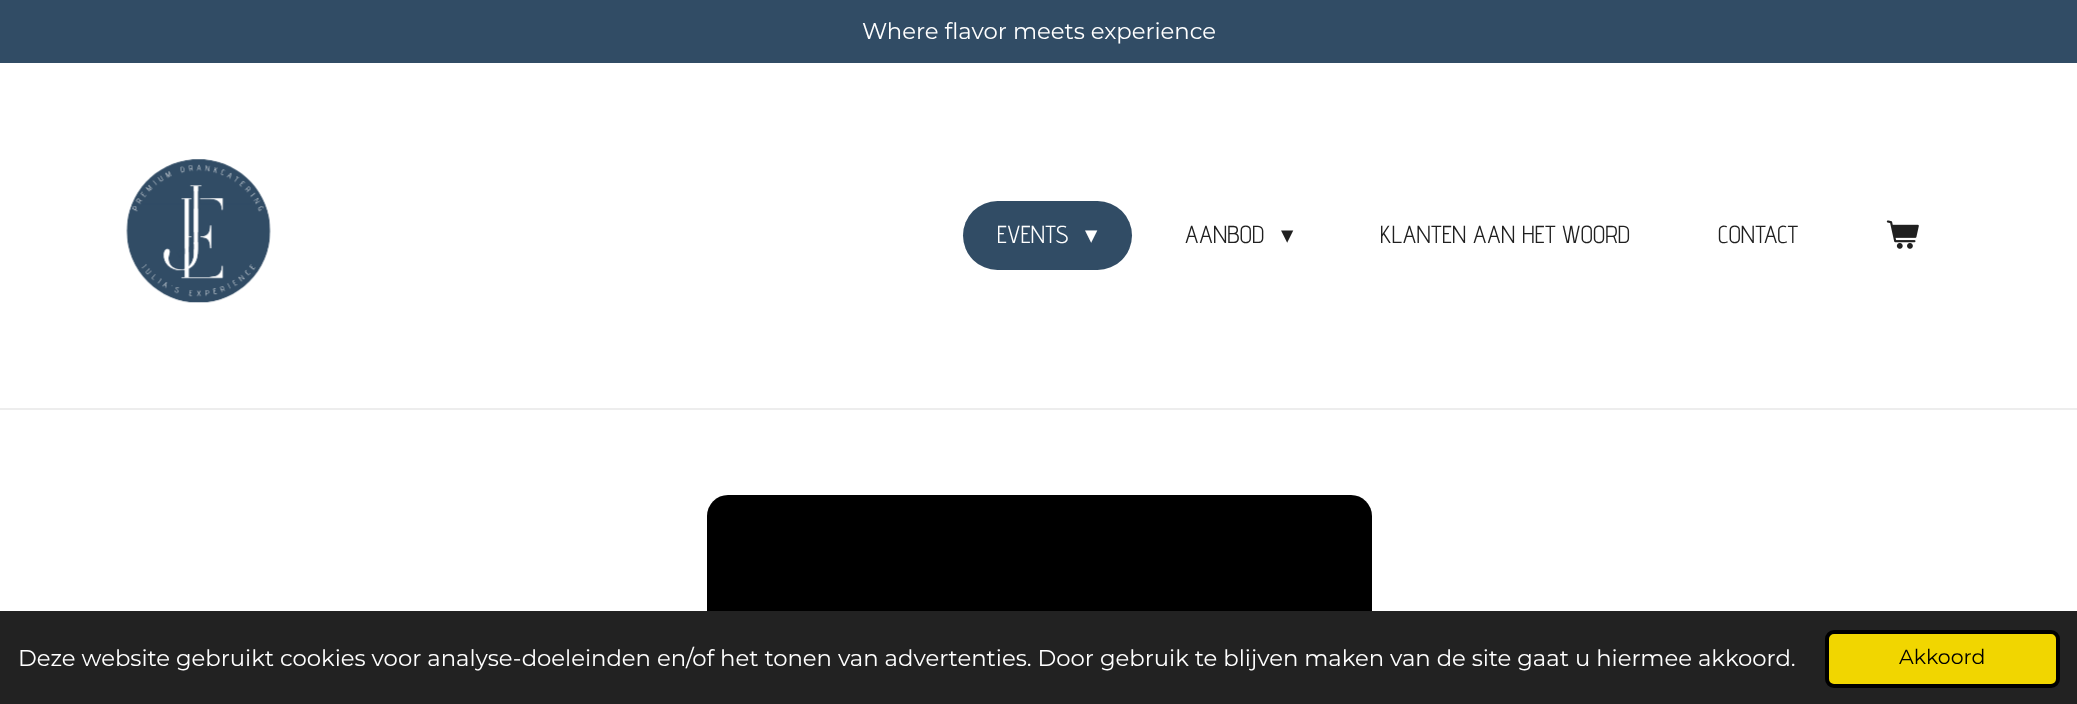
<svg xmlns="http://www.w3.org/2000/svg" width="2077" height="704">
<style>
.a{font:22.75px Montserrat;fill:#fff}
.b{font:24.5px Advent Pro;fill:#fff}
.c{font:24.5px DejaVu Sans;fill:#fff}
.d{font:24.5px Advent Pro;fill:#202020}
.e{font:24.5px DejaVu Sans;fill:#202020}
.f{font:20.5px Montserrat;fill:#000}
</style>
<rect width="100%" height="100%" fill="#fff"/>
<path fill="#314c65" d="M0 0h2077v63H0z"/>
<path fill="#ededed" d="M0 408h2077v2H0z"/>
<image href="1.png" x="126" y="159" width="145" height="144"/>
<rect fill="#314c65" x="963" y="201" width="169" height="69" rx="34.5"/>
<image href="2.png" x="1886" y="220" width="33" height="29"/>
<rect fill="#000" x="707" y="495" width="665" height="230" rx="21"/>
<path fill="#222" d="M0 611h2077v93H0z"/>
<rect fill="#f1d600" stroke="#000" stroke-width="4" x="1827" y="632" width="231" height="54" rx="7"/>
<text class="a" x="862" y="39">Where flavor meets experience</text>
<text class="b" x="997" y="243">EVENTS</text>
<text class="c" x="1085" y="243">▾</text>
<text class="d" x="1185" y="243">AANBOD</text>
<text class="e" x="1281" y="243">▾</text>
<text class="d" x="1380" y="243">KLANTEN AAN HET WOORD</text>
<text class="d" x="1718" y="243">CONTACT</text>
<text class="a" x="18" y="666">Deze website gebruikt cookies voor analyse-doeleinden en/of het tonen van advertenties. Door gebruik te blijven maken van de site gaat u hiermee akkoord.</text>
<text class="f" x="1899" y="664">Akkoord</text>
</svg>
